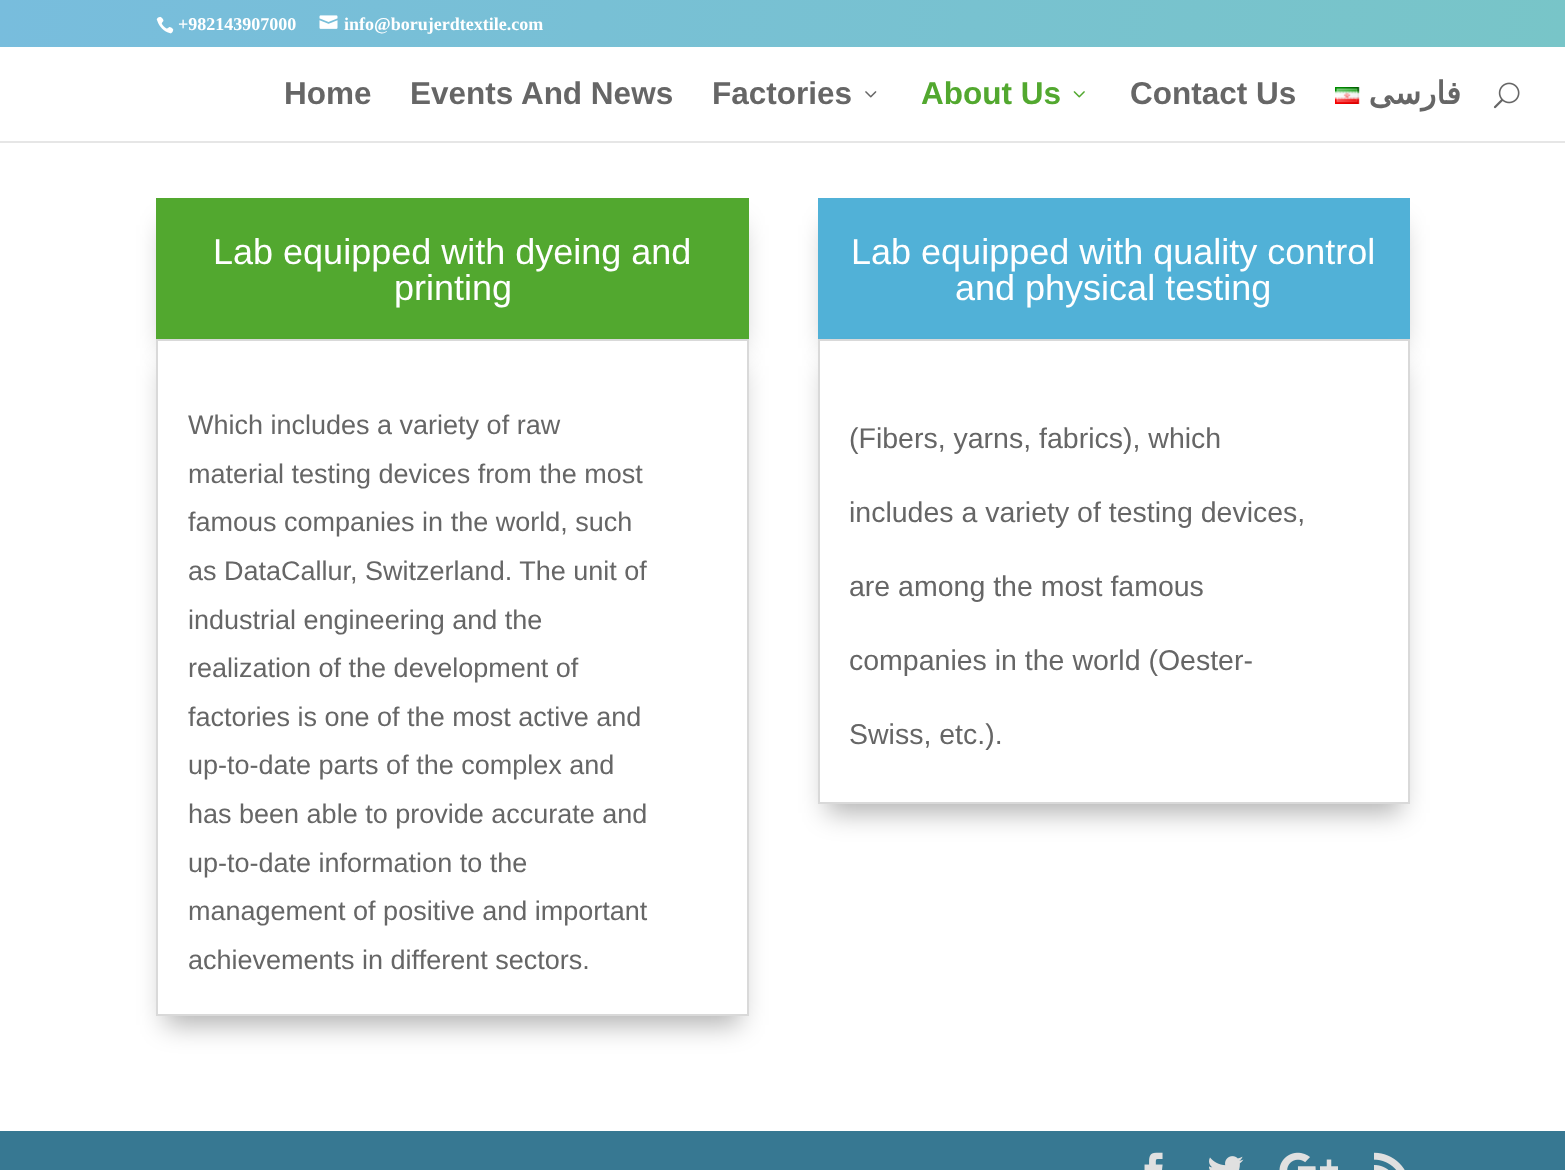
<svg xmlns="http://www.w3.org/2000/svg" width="1565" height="1170">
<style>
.a{font:bold 18px Liberation Serif;fill:#fff}
.b{font:bold 31.5px Liberation Sans;fill:#666}
.c{font:bold 31.5px Liberation Sans;fill:#52a82f}
.d{font:bold 31.5px DejaVu Sans;direction:rtl;fill:#666}
.e{font:36px Liberation Sans;fill:#fff}
.f{font:27px Liberation Sans;fill:#666}
.g{font:28.5px Liberation Sans;fill:#666}
</style>
<defs>
<linearGradient id="g1" gradientUnits="userSpaceOnUse" x1="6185" y1="631" x2="79" y2="-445"><stop offset="0" stop-color="#78dd89"/><stop offset="1" stop-color="#78bddd"/></linearGradient>
</defs>
<rect width="100%" height="100%" fill="#fff"/>
<path fill="url(#g1)" d="M0 0h1565v47H0z"/>
<image href="1.png" x="156" y="16" width="18" height="18"/>
<image href="2.png" x="319" y="15" width="19" height="14"/>
<path fill="#e6e6e6" d="M0 141h1565v2H0z"/>
<image href="3.png" x="865" y="91" width="12" height="7"/>
<image href="4.png" x="1073" y="91" width="12" height="7"/>
<image href="5.png" x="1335" y="87" width="25" height="17"/>
<image href="6.png" x="1493" y="82" width="27" height="27"/>
<path fill="#0000004d" filter="blur(13.5px)" d="M165 225h575v123H165z"/>
<path fill="#52a82f" d="M156 198h593v141H156z"/>
<path fill="#0000004d" filter="blur(13.5px)" d="M165 366h575v659H165z"/>
<path fill="#fff" stroke="#d9d9d9" stroke-width="2" d="M157 340h591v675H157z"/>
<path fill="#0000004d" filter="blur(13.5px)" d="M827 225h574v123H827z"/>
<path fill="#51b1d7" d="M818 198h592v141H818z"/>
<path fill="#0000004d" filter="blur(13.5px)" d="M827 366h574v447H827z"/>
<path fill="#fff" stroke="#d9d9d9" stroke-width="2" d="M819 340h590v463H819z"/>
<path fill="#377892" d="M0 1131h1565v39H0z"/>
<image href="7.png" x="1144" y="1152" width="19" height="18"/>
<image href="8.png" x="1209" y="1156" width="35" height="14"/>
<image href="9.png" x="1279" y="1152" width="59" height="18"/>
<image href="10.png" x="1374" y="1152" width="31" height="18"/>
<text class="a" x="178" y="30">+982143907000</text>
<text class="a" x="344" y="30">info@borujerdtextile.com</text>
<text class="b" x="284" y="104">Home</text>
<text class="b" x="410" y="104">Events And News</text>
<text class="b" x="712" y="104">Factories</text>
<text class="c" x="921" y="104">About Us</text>
<text class="b" x="1130" y="104">Contact Us</text>
<text class="d" x="1461" y="104">فارسی</text>
<text class="e" x="213" y="264">Lab equipped with dyeing and</text>
<text class="e" x="394" y="300">printing</text>
<text class="f" x="188" y="434">Which includes a variety of raw</text>
<text class="f" x="188" y="483">material testing devices from the most</text>
<text class="f" x="188" y="531">famous companies in the world, such</text>
<text class="f" x="188" y="580">as DataCallur, Switzerland. The unit of</text>
<text class="f" x="188" y="629">industrial engineering and the</text>
<text class="f" x="188" y="677">realization of the development of</text>
<text class="f" x="188" y="726">factories is one of the most active and</text>
<text class="f" x="188" y="774">up-to-date parts of the complex and</text>
<text class="f" x="188" y="823">has been able to provide accurate and</text>
<text class="f" x="188" y="872">up-to-date information to the</text>
<text class="f" x="188" y="920">management of positive and important</text>
<text class="f" x="188" y="969">achievements in different sectors.</text>
<text class="e" x="851" y="264">Lab equipped with quality control</text>
<text class="e" x="955" y="300">and physical testing</text>
<text class="g" x="849" y="448">(Fibers, yarns, fabrics), which</text>
<text class="g" x="849" y="522">includes a variety of testing devices,</text>
<text class="g" x="849" y="596">are among the most famous</text>
<text class="g" x="849" y="670">companies in the world (Oester-</text>
<text class="g" x="849" y="744">Swiss, etc.).</text>
</svg>
